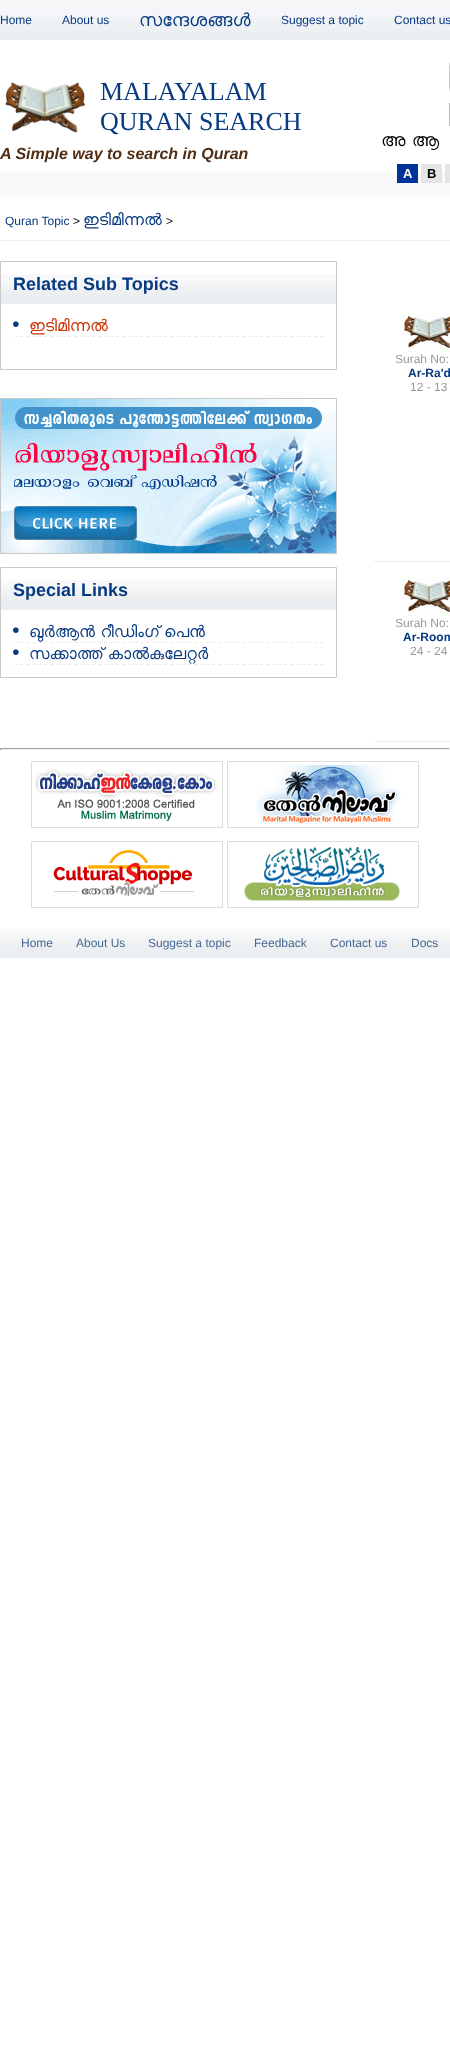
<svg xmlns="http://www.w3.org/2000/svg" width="450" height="2047">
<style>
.a{font:12px Liberation Sans;fill:#073a80}
.b{font:18px FreeSans;fill:#073a80}
.c{font:26px Liberation Serif;fill:#073a80}
.d{font:italic bold 16px Liberation Sans;fill:#512d14}
.e{font:18px FreeSans;fill:#000}
.f{font:bold 13px Liberation Sans;fill:#fff}
.g{font:bold 13px Liberation Sans;fill:#000}
.h{font:12px Liberation Sans;fill:#000}
.i{font:16px FreeSans;fill:#073a80}
.j{font:bold 18px Liberation Sans;fill:#073a80}
.k{font:16px FreeSans;fill:#c30}
.l{font:12px Liberation Sans;fill:#999}
.m{font:bold 12px Liberation Sans;fill:#073a80}
.n{font:12px Liberation Sans;fill:#456893}
</style>
<rect width="100%" height="100%" fill="#fff"/>
<image href="1.png" x="0" y="0" width="450" height="40"/>
<path fill="#f9f9fa" d="M0 172h450v25H0z"/>
<image href="2.png" x="5" y="82" width="80" height="51"/>
<image href="3.png" x="449" y="62" width="1" height="30"/>
<image href="4.png" x="449" y="103" width="1" height="23"/>
<path fill="#039" d="M397 164h21v19H397z"/>
<path fill="#e5e5e5" d="M421 164h21v19H421z"/>
<path fill="#e5e5e5" d="M445 164h5v19H445z"/>
<path fill="#efefef" d="M0 240h450v1H0z"/>
<image href="5.png" x="1" y="274" width="335" height="30"/>
<path fill="none" stroke="#c8c8c8" d="M0.5 261.5h336v108H0.5z"/>
<image href="6.png" x="14" y="336" width="309" height="1"/>
<image href="7.png" x="13" y="321" width="6" height="6"/>
<path fill="none" stroke="#c8c8c8" d="M0.5 398.5h336v155H0.5z"/>
<image href="8.png" x="1" y="399" width="335" height="154"/>
<image href="5.png" x="1" y="580" width="335" height="30"/>
<path fill="none" stroke="#c8c8c8" d="M0.5 567.5h336v110H0.5z"/>
<image href="6.png" x="14" y="642" width="309" height="1"/>
<image href="7.png" x="13" y="627" width="6" height="6"/>
<image href="6.png" x="14" y="664" width="309" height="1"/>
<image href="7.png" x="13" y="649" width="6" height="6"/>
<path fill="#ebebeb" d="M374 561h76v1H374z"/>
<image href="9.png" x="400" y="313" width="50" height="39"/>
<path fill="#ebebeb" d="M374 741h76v1H374z"/>
<image href="9.png" x="400" y="577" width="50" height="39"/>
<path fill="#9f9f9f" d="M0 748h450v1H0z"/>
<path fill="#eee" d="M449 748h1v2H449z"/>
<path fill="#eee" d="M0 749h450v1H0z"/>
<path fill="#9f9f9f" d="M0 748h1v2H0z"/>
<path fill="none" stroke="#ddd" d="M31.5 761.5h191v66H31.5z"/>
<image href="10.png" x="35" y="769" width="182" height="52"/>
<path fill="none" stroke="#ddd" d="M227.5 761.5h191v66H227.5z"/>
<image href="11.png" x="256" y="765" width="145" height="61"/>
<path fill="none" stroke="#ddd" d="M31.5 841.5h191v66H31.5z"/>
<image href="12.png" x="53" y="850" width="141" height="47"/>
<path fill="none" stroke="#ddd" d="M227.5 841.5h191v66H227.5z"/>
<image href="13.png" x="244" y="845" width="156" height="56"/>
<image href="14.png" x="0" y="928" width="450" height="30"/>
<text class="a" x="0" y="24">Home</text>
<text class="a" x="62" y="24">About us</text>
<text class="b" x="139" y="26">സന്ദേശങ്ങള്‍</text>
<text class="a" x="281" y="24">Suggest a topic</text>
<text class="a" x="394" y="24">Contact us</text>
<text class="c" x="100" y="100">MALAYALAM</text>
<text class="c" x="100" y="130">QURAN SEARCH</text>
<text class="d" x="0" y="159">A Simple way to search in Quran</text>
<text class="e" x="381" y="146" word-spacing="-1">അ ആ</text>
<text class="f" x="403" y="178">A</text>
<text class="g" x="427" y="178">B</text>
<text class="a" x="5" y="225">Quran Topic</text>
<text class="h" x="73" y="225">&gt;</text>
<text class="i" x="83" y="225">ഇടിമിന്നല്‍</text>
<text class="h" x="166" y="225">&gt;</text>
<text class="j" x="13" y="290">Related Sub Topics</text>
<text class="k" x="29" y="331">ഇടിമിന്നല്‍</text>
<text class="j" x="13" y="596">Special Links</text>
<text class="i" x="29" y="637" word-spacing="-1">ഖുർആൻ റീഡിംഗ് പെൻ</text>
<text class="i" x="29" y="659" word-spacing="-1">സക്കാത്ത് കാൽകുലേറ്റർ</text>
<text class="l" x="395" y="363">Surah No:</text>
<text class="m" x="408" y="377">Ar-Ra'd</text>
<text class="l" x="410" y="391">12 - 13</text>
<text class="l" x="395" y="627">Surah No:</text>
<text class="m" x="403" y="641">Ar-Room</text>
<text class="l" x="410" y="655">24 - 24</text>
<text class="n" x="21" y="947">Home</text>
<text class="n" x="76" y="947">About Us</text>
<text class="n" x="148" y="947">Suggest a topic</text>
<text class="n" x="254" y="947">Feedback</text>
<text class="n" x="330" y="947">Contact us</text>
<text class="n" x="411" y="947">Docs</text>
</svg>
